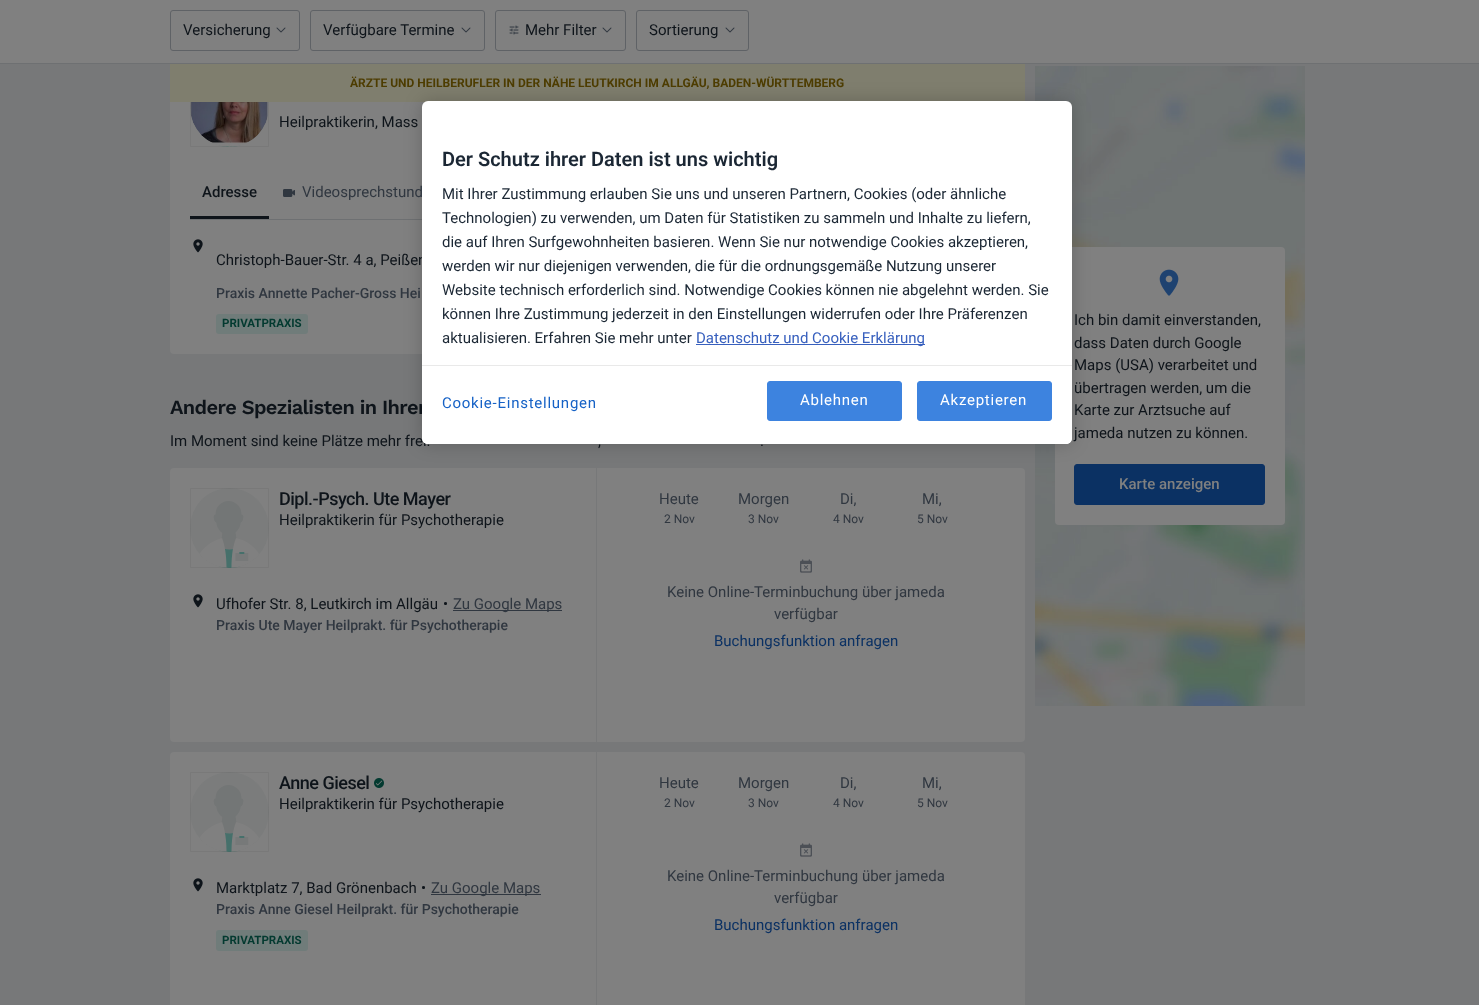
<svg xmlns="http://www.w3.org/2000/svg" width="1479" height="1005">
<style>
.a{font:15px Roboto;fill:#0e141a}
.b{font:bold 12px Roboto;fill:#4d3c00}
.c{font:500 15px Roboto;fill:#0e141a}
.d{font:15px Roboto;fill:#303740}
.e{font:500 14px Roboto;fill:#303740}
.f{font:bold 11.5px Roboto;fill:#033a30}
.g{font:600 20px Work Sans;letter-spacing:-0.6px;fill:#0e141a}
.h{font:500 18px Roboto;letter-spacing:-0.5px;fill:#0e141a}
.i{font:12px Roboto;fill:#303740}
.j{font:15px Roboto;fill:#0b3163}
.k{font:500 15px Roboto;fill:#808080}
.l{font:600 20px Roboto;fill:#1b2734}
.m{font:15px Roboto;fill:#1b2734}
.n{font:15px Roboto;fill:#3860be}
.o{font:15px Roboto;letter-spacing:0.75px;fill:#1662c6}
.p{font:15px Roboto;letter-spacing:0.75px;fill:#fff}
</style>
<rect width="100%" height="100%" fill="#777879"/>
<rect fill="#808080" x="170" y="47" width="855" height="307" rx="4"/>
<path fill="#808080" d="M0 0h1479v63H0z"/>
<path fill="#6e7072" d="M0 63h1479v1H0z"/>
<rect fill="none" stroke="#5f6266" x="170.5" y="10.5" width="129" height="40" rx="2.5"/>
<image href="1.png" x="276" y="27" width="10" height="6"/>
<rect fill="none" stroke="#5f6266" x="310.5" y="10.5" width="174" height="40" rx="2.5"/>
<image href="1.png" x="461" y="27" width="10" height="6"/>
<rect fill="none" stroke="#5f6266" x="495.5" y="10.5" width="130" height="40" rx="2.5"/>
<image href="2.png" x="509" y="25" width="10" height="10"/>
<image href="1.png" x="602" y="27" width="10" height="6"/>
<rect fill="none" stroke="#5f6266" x="636.5" y="10.5" width="112" height="40" rx="2.5"/>
<image href="1.png" x="725" y="27" width="10" height="6"/>
<image href="3.png" x="190" y="102" width="79" height="45"/>
<image href="4.png" x="190" y="102" width="79" height="45"/>
<path fill="none" stroke="#0000000d" d="M190.5 67.5h78v79H190.5z"/>
<path fill="#7f7e6e" d="M170 64h855v38H170z"/>
<path fill="#6e7072" d="M190 219h232v1H190z"/>
<path fill="#0e141a" d="M190 216h79v3H190z"/>
<image href="5.png" x="283" y="189" width="12" height="8"/>
<image href="6.png" x="193" y="239" width="10" height="14"/>
<rect fill="#707c7a" x="216" y="314" width="92" height="20" rx="3"/>
<rect fill="#808080" x="170" y="468" width="855" height="274" rx="4"/>
<path fill="#777879" d="M596 468h1v274H596z"/>
<image href="7.png" x="190" y="488" width="79" height="80"/>
<path fill="none" stroke="#0000000d" d="M190.5 488.5h78v79H190.5z"/>
<image href="6.png" x="193" y="594" width="10" height="14"/>
<path fill="#303740" d="M453 610h109v1H453z"/>
<image href="8.png" x="800" y="559" width="12" height="14"/>
<rect fill="#808080" x="170" y="752" width="855" height="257" rx="4"/>
<path fill="#777879" d="M596 752h1v253H596z"/>
<image href="9.png" x="190" y="772" width="79" height="80"/>
<path fill="none" stroke="#0000000d" d="M190.5 772.5h78v79H190.5z"/>
<image href="10.png" x="374" y="778" width="10" height="10"/>
<image href="6.png" x="193" y="878" width="10" height="14"/>
<path fill="#303740" d="M431 894h110v1H431z"/>
<rect fill="#707c7a" x="216" y="930" width="92" height="21" rx="3"/>
<image href="8.png" x="800" y="843" width="12" height="14"/>
<image href="11.png" x="1035" y="66" width="270" height="640"/>
<rect fill="#808080" x="1055" y="247" width="230" height="278" rx="4"/>
<image href="12.png" x="1159" y="269" width="20" height="27"/>
<rect fill="#0b3163" stroke="#0b3163" x="1074.5" y="464.5" width="190" height="40" rx="2.5"/>
<rect fill="#00000033" filter="blur(9px)" x="422" y="101" width="650" height="343" rx="6"/>
<text class="a" x="183" y="35">Versicherung</text>
<text class="a" x="323" y="35">Verfügbare Termine</text>
<text class="a" x="525" y="35">Mehr Filter</text>
<text class="a" x="649" y="35">Sortierung</text>
<text class="b" x="350" y="87">ÄRZTE UND HEILBERUFLER IN DER NÄHE LEUTKIRCH IM ALLGÄU, BADEN-WÜRTTEMBERG</text>
<text class="a" x="279" y="127">Heilpraktikerin, Mass</text>
<text class="c" x="202" y="197">Adresse</text>
<text class="d" x="302" y="197">Videosprechstund</text>
<text class="a" x="216" y="265">Christoph-Bauer-Str. 4 a, Peißen</text>
<text class="e" x="216" y="298">Praxis Annette Pacher-Gross Hei</text>
<text class="f" x="222" y="327">PRIVATPRAXIS</text>
<text class="g" x="170" y="414">Andere Spezialisten in Ihrer</text>
<text class="a" x="170" y="446">Im Moment sind keine Plätze mehr frei.</text>
<text class="a" x="598" y="446">,</text>
<text class="a" x="760" y="446">.</text>
<text class="h" x="279" y="505">Dipl.-Psych. Ute Mayer</text>
<text class="a" x="279" y="525">Heilpraktikerin für Psychotherapie</text>
<text class="a" x="216" y="609">Ufhofer Str. 8, Leutkirch im Allgäu</text>
<text class="a" x="443" y="609">•</text>
<text class="d" x="453" y="609">Zu Google Maps</text>
<text class="e" x="216" y="630">Praxis Ute Mayer Heilprakt. für Psychotherapie</text>
<text class="d" x="659" y="504">Heute</text>
<text class="i" x="664" y="523">2 Nov</text>
<text class="d" x="738" y="504">Morgen</text>
<text class="i" x="748" y="523">3 Nov</text>
<text class="d" x="840" y="504">Di,</text>
<text class="i" x="833" y="523">4 Nov</text>
<text class="d" x="922" y="504">Mi,</text>
<text class="i" x="917" y="523">5 Nov</text>
<text class="d" x="667" y="597">Keine Online-Terminbuchung über jameda</text>
<text class="d" x="774" y="619">verfügbar</text>
<text class="j" x="714" y="646">Buchungsfunktion anfragen</text>
<text class="h" x="279" y="789">Anne Giesel</text>
<text class="a" x="279" y="809">Heilpraktikerin für Psychotherapie</text>
<text class="a" x="216" y="893">Marktplatz 7, Bad Grönenbach</text>
<text class="a" x="421" y="893">•</text>
<text class="d" x="431" y="893">Zu Google Maps</text>
<text class="e" x="216" y="914">Praxis Anne Giesel Heilprakt. für Psychotherapie</text>
<text class="f" x="222" y="944">PRIVATPRAXIS</text>
<text class="d" x="659" y="788">Heute</text>
<text class="i" x="664" y="807">2 Nov</text>
<text class="d" x="738" y="788">Morgen</text>
<text class="i" x="748" y="807">3 Nov</text>
<text class="d" x="840" y="788">Di,</text>
<text class="i" x="833" y="807">4 Nov</text>
<text class="d" x="922" y="788">Mi,</text>
<text class="i" x="917" y="807">5 Nov</text>
<text class="d" x="667" y="881">Keine Online-Terminbuchung über jameda</text>
<text class="d" x="774" y="903">verfügbar</text>
<text class="j" x="714" y="930">Buchungsfunktion anfragen</text>
<text class="a" x="1074" y="325">Ich bin damit einverstanden,</text>
<text class="a" x="1074" y="348">dass Daten durch Google</text>
<text class="a" x="1074" y="370">Maps (USA) verarbeitet und</text>
<text class="a" x="1074" y="393">übertragen werden, um die</text>
<text class="a" x="1074" y="415">Karte zur Arztsuche auf</text>
<text class="a" x="1074" y="438">jameda nutzen zu können.</text>
<text class="k" x="1119" y="489">Karte anzeigen</text>
<rect fill="#fff" x="422" y="101" width="650" height="343" rx="6"/>
<text class="l" x="442" y="166">Der Schutz ihrer Daten ist uns wichtig</text>
<text class="m" x="442" y="199">Mit Ihrer Zustimmung erlauben Sie uns und unseren Partnern, Cookies (oder ähnliche</text>
<text class="m" x="442" y="223">Technologien) zu verwenden, um Daten für Statistiken zu sammeln und Inhalte zu liefern,</text>
<text class="m" x="442" y="247">die auf Ihren Surfgewohnheiten basieren. Wenn Sie nur notwendige Cookies akzeptieren,</text>
<text class="m" x="442" y="271">werden wir nur diejenigen verwenden, die für die ordnungsgemäße Nutzung unserer</text>
<text class="m" x="442" y="295">Website technisch erforderlich sind. Notwendige Cookies können nie abgelehnt werden. Sie</text>
<text class="m" x="442" y="319">können Ihre Zustimmung jederzeit in den Einstellungen widerrufen oder Ihre Präferenzen</text>
<text class="m" x="442" y="343">aktualisieren. Erfahren Sie mehr unter</text>
<path fill="#3860be" d="M696 344h229v1H696z"/>
<text class="n" x="696" y="343">Datenschutz und Cookie Erklärung</text>
<path fill="#fff" d="M422 365h650v73c0 3.5-2.5 6-6 6h-638c-3.5 0-6-2.5-6-6z"/>
<path fill="#e9e9e9" d="M422 365h650v1H422z"/>
<text class="o" x="442" y="408">Cookie-Einstellungen</text>
<rect fill="#3d83df" stroke="#3d83df" x="767.5" y="381.5" width="134" height="39" rx="2.5"/>
<text class="p" x="800" y="405">Ablehnen</text>
<rect fill="#3d83df" stroke="#3d83df" x="917.5" y="381.5" width="134" height="39" rx="2.5"/>
<text class="p" x="940" y="405">Akzeptieren</text>
</svg>
